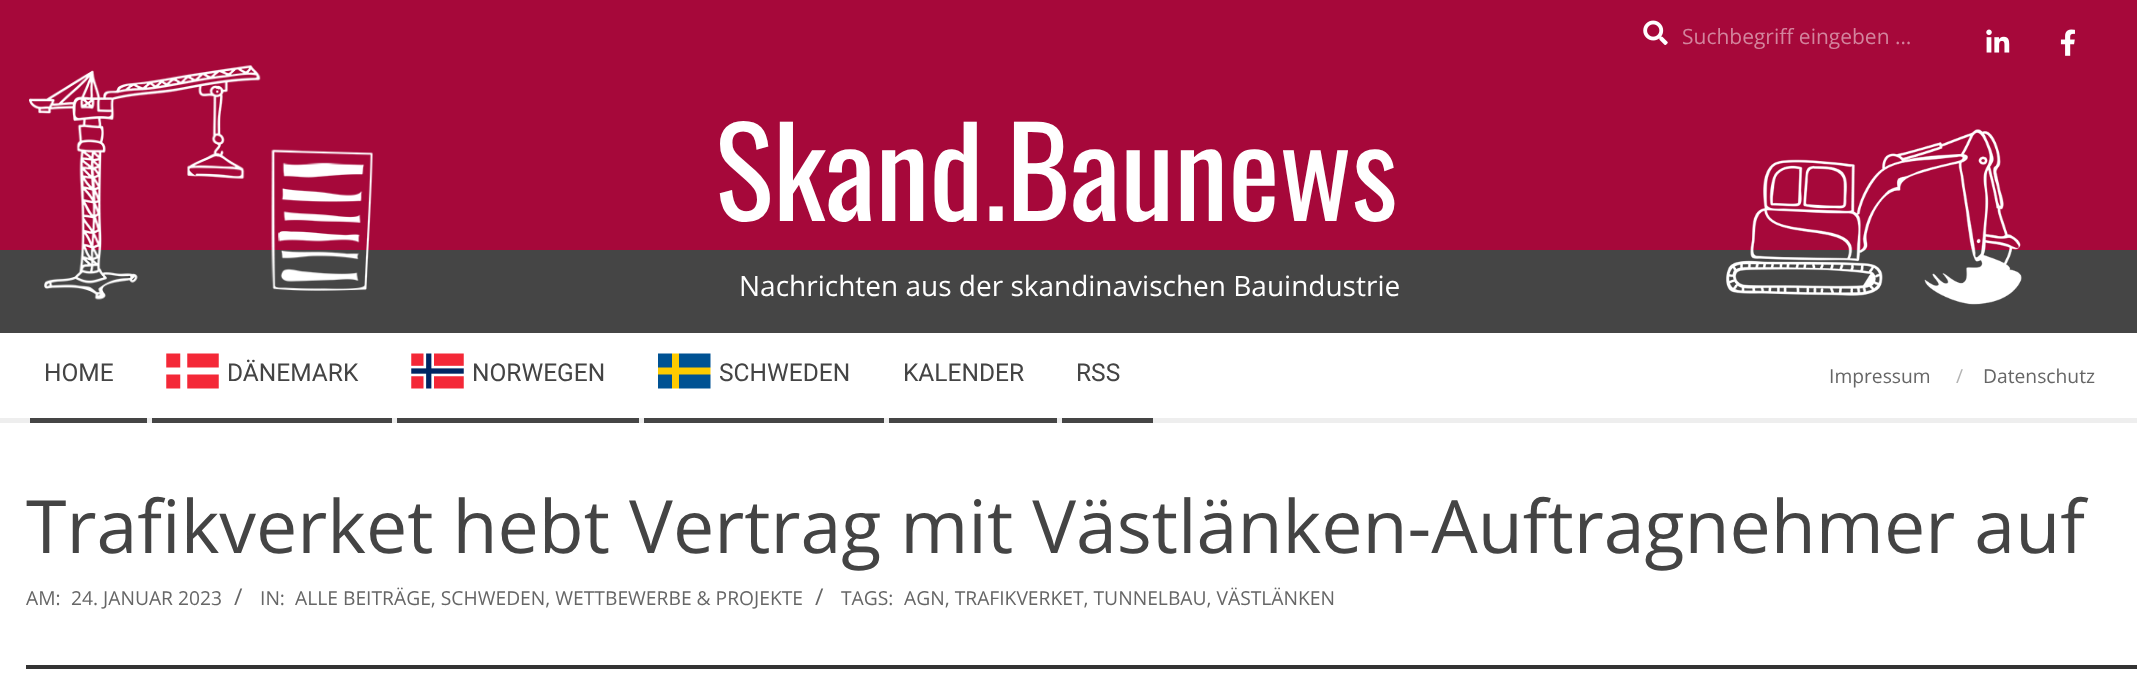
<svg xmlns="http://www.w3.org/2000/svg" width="2137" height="700">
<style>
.a{font:21px Open Sans;fill:#d3849d}
.b{font:122.5px Oswald;fill:#fff}
.c{font:28px Open Sans;fill:#fff}
.d{font:24.5px Roboto;fill:#444}
.e{font:19.25px Open Sans;fill:#666}
.f{font:19.25px Open Sans;fill:#b3b3b3}
.g{font:73.5px Open Sans;fill:#444}
.h{font:23px Open Sans;fill:#666}
</style>
<rect width="100%" height="100%" fill="#a6083a"/>
<image href="1.png" x="1643" y="20" width="25" height="25"/>
<image href="2.png" x="1986" y="29" width="24" height="24"/>
<image href="3.png" x="2060" y="29" width="15" height="27"/>
<path fill="#454545" d="M0 250h2137v83H0z"/>
<image href="4.png" x="29" y="65" width="344" height="235"/>
<image href="5.png" x="1726" y="129" width="296" height="176"/>
<path fill="#fff" d="M0 333h2137v367H0z"/>
<path fill="#eee" d="M0 418h2137v5H0z"/>
<path fill="#454545" d="M30 418h117v5H30z"/>
<image href="6.png" x="166" y="353" width="53" height="36"/>
<path fill="#454545" d="M152 418h240v5H152z"/>
<image href="7.png" x="411" y="353" width="53" height="36"/>
<path fill="#454545" d="M397 418h242v5H397z"/>
<image href="8.png" x="658" y="353" width="53" height="36"/>
<path fill="#454545" d="M644 418h240v5H644z"/>
<path fill="#454545" d="M889 418h168v5H889z"/>
<path fill="#454545" d="M1062 418h91v5H1062z"/>
<path fill="#333" d="M26 665h2111v4H26z"/>
<text class="a" x="1682" y="44">Suchbegriff eingeben …</text>
<text class="b" x="715" y="221">Skand.Baunews</text>
<text class="c" x="739" y="296">Nachrichten aus der skandinavischen Bauindustrie</text>
<text class="d" x="44" y="381">HOME</text>
<text class="d" x="227" y="381">DÄNEMARK</text>
<text class="d" x="472" y="381">NORWEGEN</text>
<text class="d" x="719" y="381">SCHWEDEN</text>
<text class="d" x="903" y="381">KALENDER</text>
<text class="d" x="1076" y="381">RSS</text>
<text class="e" x="1829" y="383">Impressum</text>
<text class="f" x="1956" y="383">/</text>
<text class="e" x="1983" y="383">Datenschutz</text>
<text class="g" x="26" y="553">Trafikverket hebt Vertrag mit Västlänken-Auftragnehmer auf</text>
<text class="e" x="26" y="605">AM:</text>
<text class="e" x="71" y="605">24. JANUAR 2023</text>
<text class="h" x="234" y="605">/</text>
<text class="e" x="260" y="605">IN:</text>
<text class="e" x="295" y="605">ALLE BEITRÄGE, SCHWEDEN, WETTBEWERBE &amp; PROJEKTE</text>
<text class="h" x="815" y="605">/</text>
<text class="e" x="841" y="605">TAGS:</text>
<text class="e" x="904" y="605">AGN, TRAFIKVERKET, TUNNELBAU, VÄSTLÄNKEN</text>
</svg>
